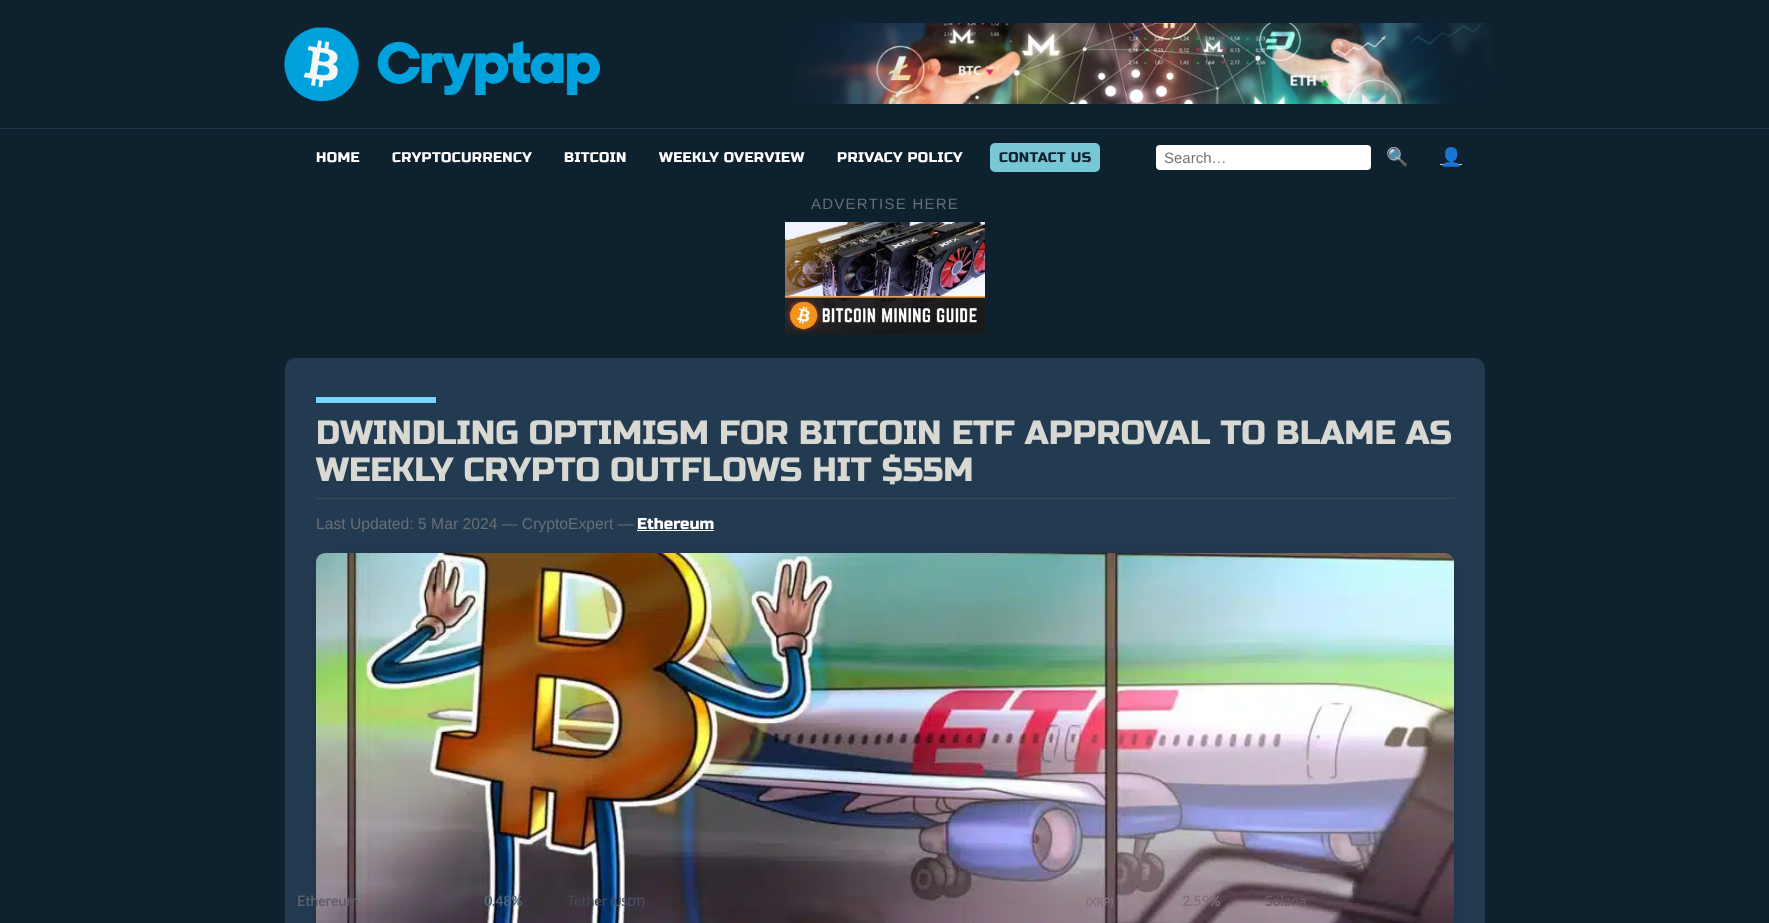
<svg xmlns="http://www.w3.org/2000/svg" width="1769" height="923">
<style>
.a{font:14.1px Russo One;letter-spacing:0.4px;fill:#fff}
.b{font:14.1px Russo One;letter-spacing:0.4px;fill:#0e212e}
.c{font:15px Liberation Sans;fill:#757575}
.d{font:18px Noto Color Emoji;fill:#ced0d2}
.e{font:15px Liberation Sans;letter-spacing:1.25px;fill:#666f75}
.f{font:33.6px Russo One;fill:#d9d9d4}
.g{font:15.7px Liberation Sans;fill:#666f75}
.h{font:15.7px Russo One;fill:#fff}
.i{font:bold 14px Lato;fill:#5f5e6c}
.j{font:bold 14px Lato;fill:#53667d}
.k{font:bold 14px Lato;fill:#474754}
.l{font:bold 11px Lato;fill:#4b5366}
.m{font:bold 11px Lato;fill:#84707c}
.n{font:bold 14px Lato;fill:#84707c}
.o{font:bold 14px Lato;fill:#6e5965}
</style>
<rect width="100%" height="100%" fill="#0e212e"/>
<image href="1.png" x="284" y="27" width="316" height="75"/>
<image href="2.png" x="796" y="23" width="697" height="81"/>
<path fill="#223649" d="M0 128h1769v1H0z"/>
<rect fill="#78c7d4" x="990" y="143" width="110" height="29" rx="5"/>
<rect fill="#fff" x="1156" y="145" width="215" height="25" rx="4"/>
<path fill="#ced0d2" d="M1440 164h22v1H1440z"/>
<image href="3.png" x="785" y="222" width="200" height="112"/>
<rect fill="#233b51" x="285" y="358" width="1200" height="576" rx="11"/>
<path fill="#7cd0fc" d="M316 397h120v6H316z"/>
<path fill="#3a4c5a" d="M316 498h1138v1H316z"/>
<path fill="#fff" d="M637 530h77v1H637z"/>
<rect fill="#00000021" filter="blur(9px)" x="316" y="555" width="1138" height="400" rx="9"/>
<image href="4.png" x="316" y="553" width="1138" height="370"/>
<text class="a" x="316" y="162">HOME</text>
<text class="a" x="392" y="162">CRYPTOCURRENCY</text>
<text class="a" x="564" y="162">BITCOIN</text>
<text class="a" x="659" y="162">WEEKLY OVERVIEW</text>
<text class="a" x="837" y="162">PRIVACY POLICY</text>
<text class="b" x="999" y="162">CONTACT US</text>
<text class="c" x="1164" y="163">Search…</text>
<text class="d" x="1386" y="163">🔍</text>
<text class="d" x="1440" y="163">👤</text>
<text class="e" x="811" y="209">ADVERTISE HERE</text>
<text class="f" x="316" y="444">DWINDLING OPTIMISM FOR BITCOIN ETF APPROVAL TO BLAME AS</text>
<text class="f" x="316" y="481">WEEKLY CRYPTO OUTFLOWS HIT $55M</text>
<text class="g" x="316" y="529">Last Updated: 5 Mar 2024 — CryptoExpert —</text>
<text class="h" x="637" y="529">Ethereum</text>
<text class="i" x="297" y="906">Ethereum</text>
<text class="j" x="484" y="906">0.48%</text>
<text class="k" x="567" y="906">Tether</text>
<text class="l" x="610" y="906">(USDT)</text>
<text class="m" x="1086" y="906">(XRP)</text>
<text class="n" x="1182" y="906">2.59%</text>
<text class="o" x="1265" y="906">Solana</text>
</svg>
